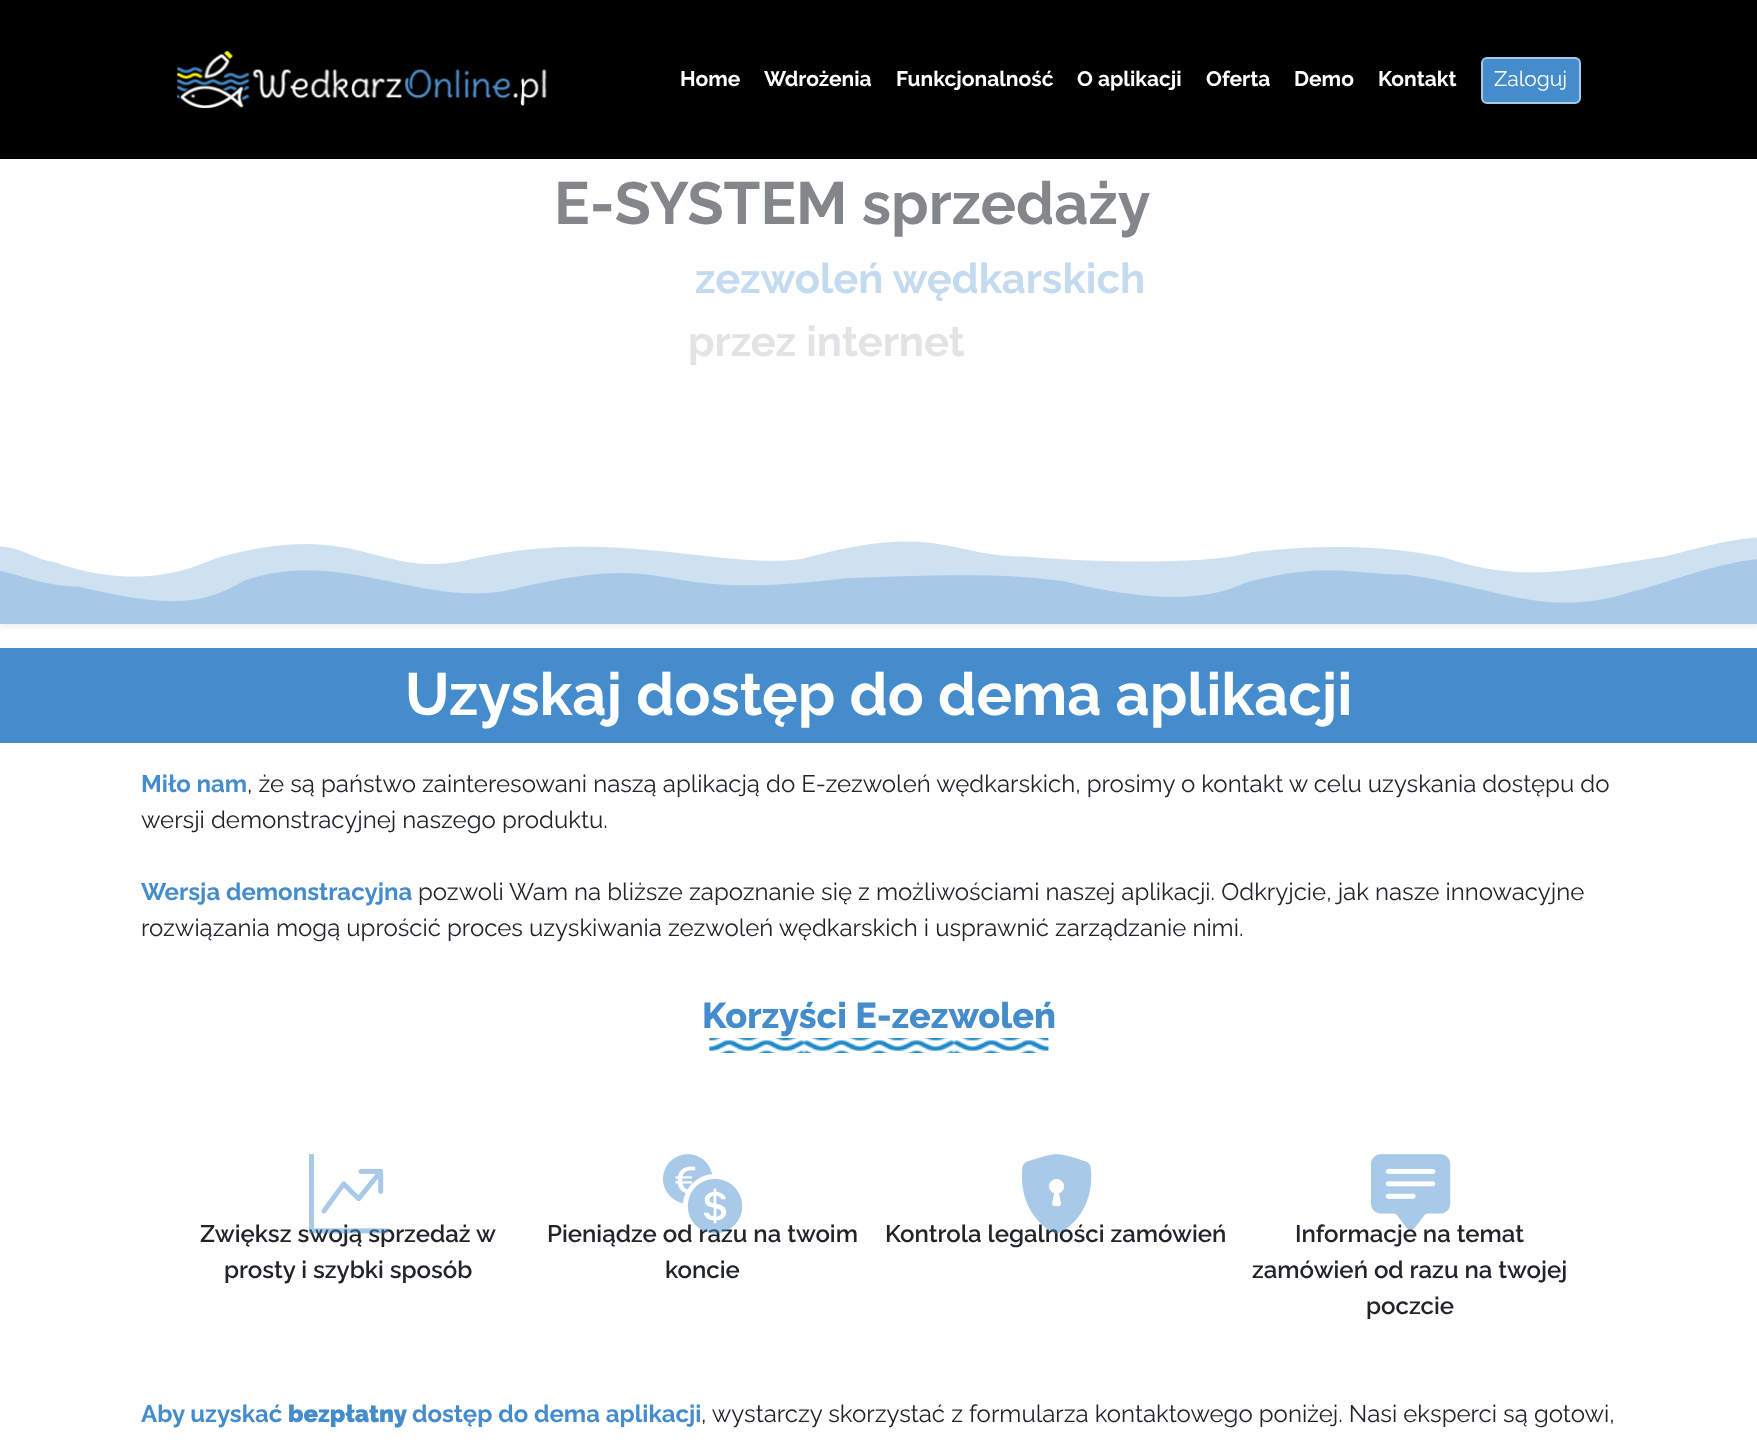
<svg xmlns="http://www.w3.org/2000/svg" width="1757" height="1444">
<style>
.a{font:bold 21px Raleway;fill:#fff}
.b{font:21px Raleway;fill:#fff}
.c{font:bold 59.4px Raleway;fill:#848789}
.d{font:bold 41.75px Raleway;fill:#c3daef}
.e{font:bold 41.75px Raleway;fill:#e2e3e4}
.f{font:bold 59.4px Raleway;fill:#fff}
.g{font:bold 24px Raleway;fill:#458ccc}
.h{font:24px Raleway;fill:#212529}
.i{font:800 36px Raleway;fill:#458ccc}
.j{font:600 24px Raleway;fill:#212529}
.k{font:900 24px Raleway;fill:#458ccc}
</style>
<defs>
<clipPath id="clip1"><path d="M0 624h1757v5H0z"/></clipPath>
</defs>
<rect width="100%" height="100%" fill="#fff"/>
<g clip-path="url(#clip1)">
<path fill="#00000012" filter="blur(3px)" d="M0 162h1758v465H0z"/>
</g>
<path fill="#000" d="M0 0h1757v159H0z"/>
<image href="1.png" x="177" y="51" width="370" height="58"/>
<rect fill="#458ccc" stroke="#a7c9e7" stroke-width="2" x="1482" y="58" width="98" height="45" rx="5"/>
<image href="2.png" x="0" y="537" width="1757" height="87"/>
<path fill="#458ccc" d="M0 648h1757v95H0z"/>
<image href="3.png" x="709" y="1038" width="340" height="15"/>
<text class="a" x="680" y="86">Home</text>
<text class="a" x="764" y="86">Wdrożenia</text>
<text class="a" x="896" y="86">Funkcjonalność</text>
<text class="a" x="1077" y="86">O aplikacji</text>
<text class="a" x="1206" y="86">Oferta</text>
<text class="a" x="1294" y="86">Demo</text>
<text class="a" x="1378" y="86">Kontakt</text>
<text class="b" x="1494" y="86">Zaloguj</text>
<text class="c" x="554" y="224">E-SYSTEM sprzedaży</text>
<text class="d" x="695" y="293">zezwoleń wędkarskich</text>
<text class="e" x="688" y="356">przez internet</text>
<text class="f" x="405" y="715">Uzyskaj dostęp do dema aplikacji</text>
<text class="g" x="141" y="792">Miło nam</text>
<text class="h" x="247" y="792">, że są państwo zainteresowani naszą aplikacją do E-zezwoleń wędkarskich, prosimy o kontakt w celu uzyskania dostępu do</text>
<text class="h" x="141" y="828">wersji demonstracyjnej naszego produktu.</text>
<text class="g" x="141" y="900">Wersja demonstracyjna</text>
<text class="h" x="418" y="900">pozwoli Wam na bliższe zapoznanie się z możliwościami naszej aplikacji. Odkryjcie, jak nasze innowacyjne</text>
<text class="h" x="141" y="936">rozwiązania mogą uprościć proces uzyskiwania zezwoleń wędkarskich i usprawnić zarządzanie nimi.</text>
<text class="i" x="702" y="1028">Korzyści E-zezwoleń</text>
<text class="j" x="200" y="1242">Zwiększ swoją sprzedaż w</text>
<image href="4.png" x="309" y="1154" width="80" height="80"/>
<text class="j" x="224" y="1278">prosty i szybki sposób</text>
<text class="j" x="547" y="1242">Pieniądze od razu na twoim</text>
<image href="5.png" x="663" y="1154" width="80" height="80"/>
<text class="j" x="665" y="1278">koncie</text>
<text class="j" x="885" y="1242">Kontrola legalności zamówień</text>
<image href="6.png" x="1022" y="1154" width="70" height="80"/>
<text class="j" x="1295" y="1242">Informacje na temat</text>
<image href="7.png" x="1371" y="1154" width="80" height="76"/>
<text class="j" x="1252" y="1278">zamówień od razu na twojej</text>
<text class="j" x="1366" y="1314">poczcie</text>
<text class="g" x="141" y="1422">Aby uzyskać</text>
<text class="k" x="288" y="1422">bezpłatny</text>
<text class="g" x="412" y="1422">dostęp do dema aplikacji</text>
<text class="h" x="701" y="1422">, wystarczy skorzystać z formularza kontaktowego poniżej. Nasi eksperci są gotowi,</text>
</svg>
